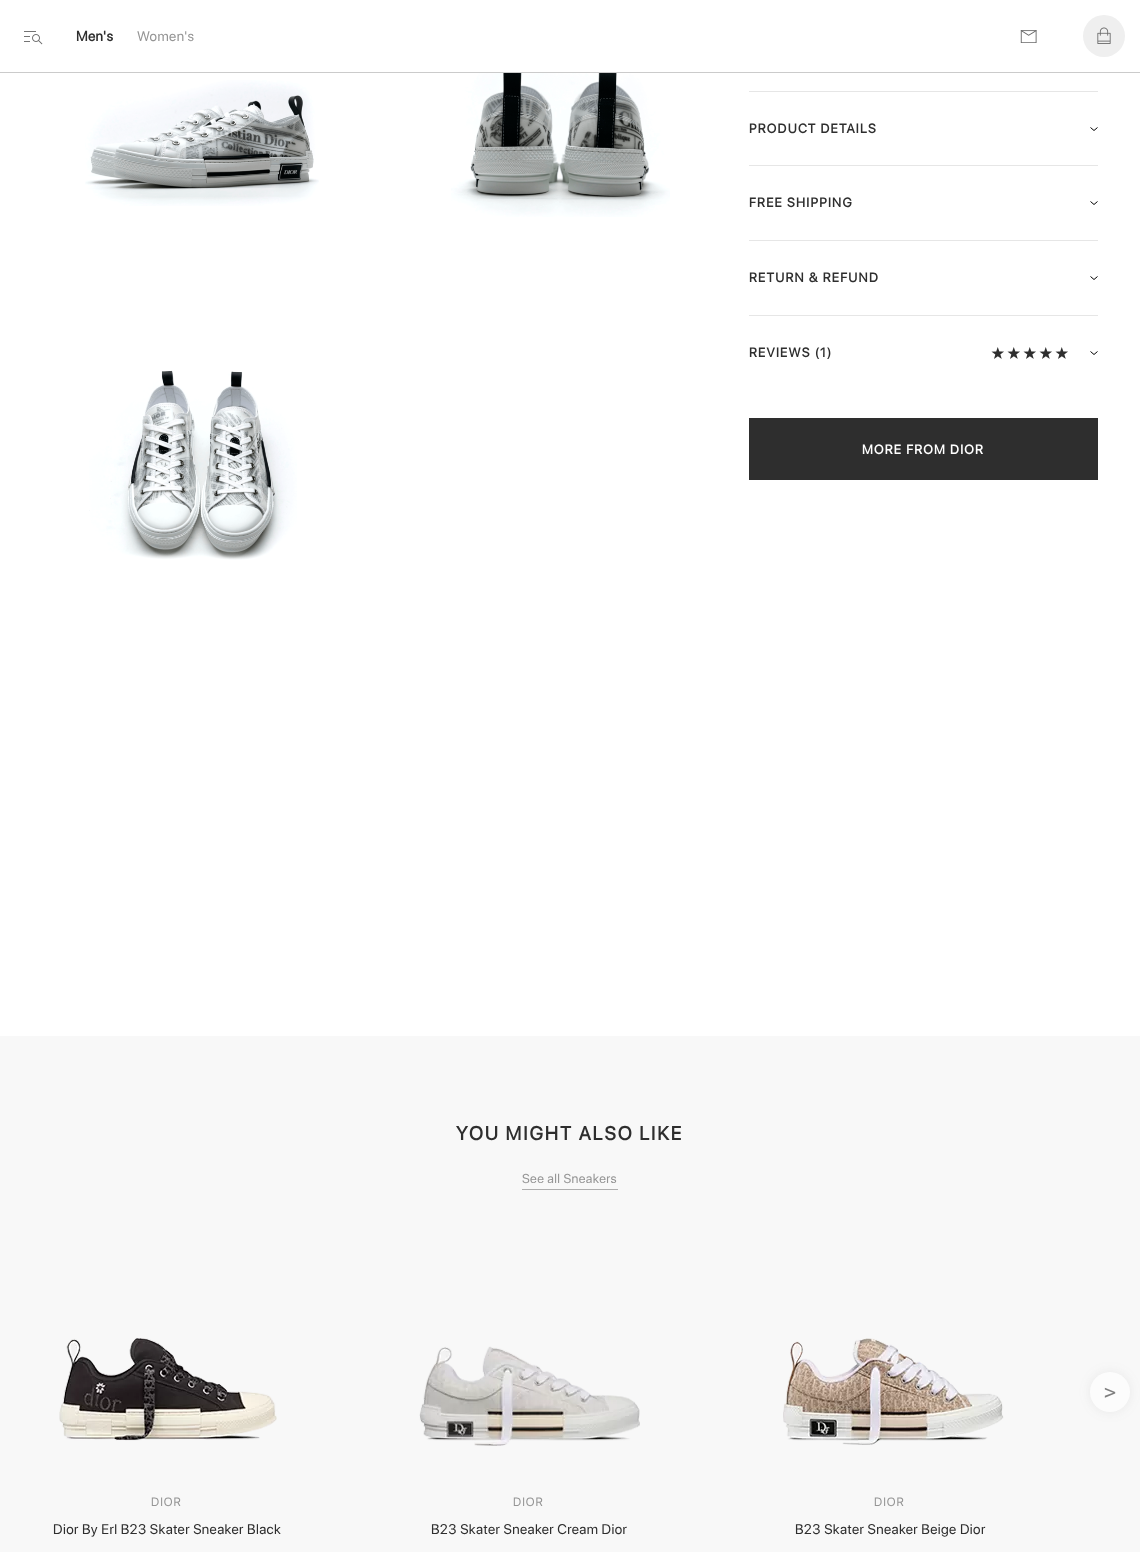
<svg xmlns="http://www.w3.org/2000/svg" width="1140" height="1552">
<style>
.a{font:bold 14px SF Pro Display;letter-spacing:0.4px;fill:#2e2e2e}
.b{font:14px SF Pro Display;letter-spacing:0.4px;fill:#959595}
.c{font:bold 13px SF Pro Display;letter-spacing:1.25px;fill:#2e2e2e}
.d{font:bold 13px SF Pro Display;letter-spacing:1.25px;fill:#fff}
.e{font:bold 19px SF Pro Display;letter-spacing:1.9px;fill:#2e2e2e}
.f{font:13px SF Pro Display;letter-spacing:0.4px;fill:#959595}
.g{font:20px DejaVu Sans Mono;fill:#7f7f7f}
.h{font:12px SF Pro Display;letter-spacing:1px;fill:#959595}
.i{font:14px SF Pro Display;letter-spacing:0.4px;fill:#2e2e2e}
</style>
<rect width="100%" height="100%" fill="#fff"/>
<path fill="#cbcbcb" d="M0 72h1140v1H0z"/>
<image href="1.png" x="24" y="31" width="19" height="14"/>
<image href="2.png" x="1020" y="30" width="17" height="13"/>
<circle fill="#efefef" cx="1104" cy="36" r="21"/>
<image href="3.png" x="1097" y="27" width="14" height="17"/>
<image href="4.png" x="85" y="80" width="234" height="126"/>
<image href="5.png" x="451" y="73" width="219" height="144"/>
<image href="6.png" x="89" y="370" width="208" height="190"/>
<path fill="#e6e6e6" d="M749 91h349v1H749z"/>
<path fill="none" stroke="#000" d="M1097.5 127.5l-3.5 3l-3.5-3"/>
<path fill="#e6e6e6" d="M749 165h349v1H749z"/>
<path fill="none" stroke="#000" d="M1097.5 201.5l-3.5 3l-3.5-3"/>
<path fill="#e6e6e6" d="M749 240h349v1H749z"/>
<path fill="none" stroke="#000" d="M1097.5 276.5l-3.5 3l-3.5-3"/>
<path fill="#e6e6e6" d="M749 315h349v1H749z"/>
<image href="7.png" x="991" y="347" width="13" height="12"/>
<image href="7.png" x="1007" y="347" width="13" height="12"/>
<image href="7.png" x="1023" y="347" width="13" height="12"/>
<image href="7.png" x="1039" y="347" width="13" height="12"/>
<image href="7.png" x="1055" y="347" width="13" height="12"/>
<path fill="none" stroke="#000" d="M1097.5 351.5l-3.5 3l-3.5-3"/>
<path fill="#2e2e2e" d="M749 418h349v62H749z"/>
<path fill="#f8f8f8" d="M0 1036h1140v516H0z"/>
<path fill="#aeaeae" d="M522 1189h96v1H522z"/>
<rect fill="#6363631a" filter="blur(6px)" x="1090" y="1372" width="40" height="40" rx="20"/>
<circle fill="#fcfcfc" cx="1110" cy="1392" r="20"/>
<image href="8.png" x="59" y="1338" width="218" height="103"/>
<image href="9.png" x="419" y="1346" width="221" height="100"/>
<image href="10.png" x="783" y="1338" width="221" height="107"/>
<text class="a" x="76" y="41">Men's</text>
<text class="b" x="137" y="41">Women's</text>
<text class="c" x="749" y="133">PRODUCT DETAILS</text>
<text class="c" x="749" y="207">FREE SHIPPING</text>
<text class="c" x="749" y="282">RETURN &amp; REFUND</text>
<text class="c" x="749" y="357">REVIEWS (1)</text>
<text class="d" x="862" y="454">MORE FROM DIOR</text>
<text class="e" x="456" y="1140">YOU MIGHT ALSO LIKE</text>
<text class="f" x="522" y="1183">See all Sneakers</text>
<text class="g" x="1104" y="1399">&gt;</text>
<text class="h" x="151" y="1506">DIOR</text>
<text class="i" x="53" y="1534">Dior By Erl B23 Skater Sneaker Black</text>
<text class="h" x="513" y="1506">DIOR</text>
<text class="i" x="431" y="1534">B23 Skater Sneaker Cream Dior</text>
<text class="h" x="874" y="1506">DIOR</text>
<text class="i" x="795" y="1534">B23 Skater Sneaker Beige Dior</text>
</svg>
